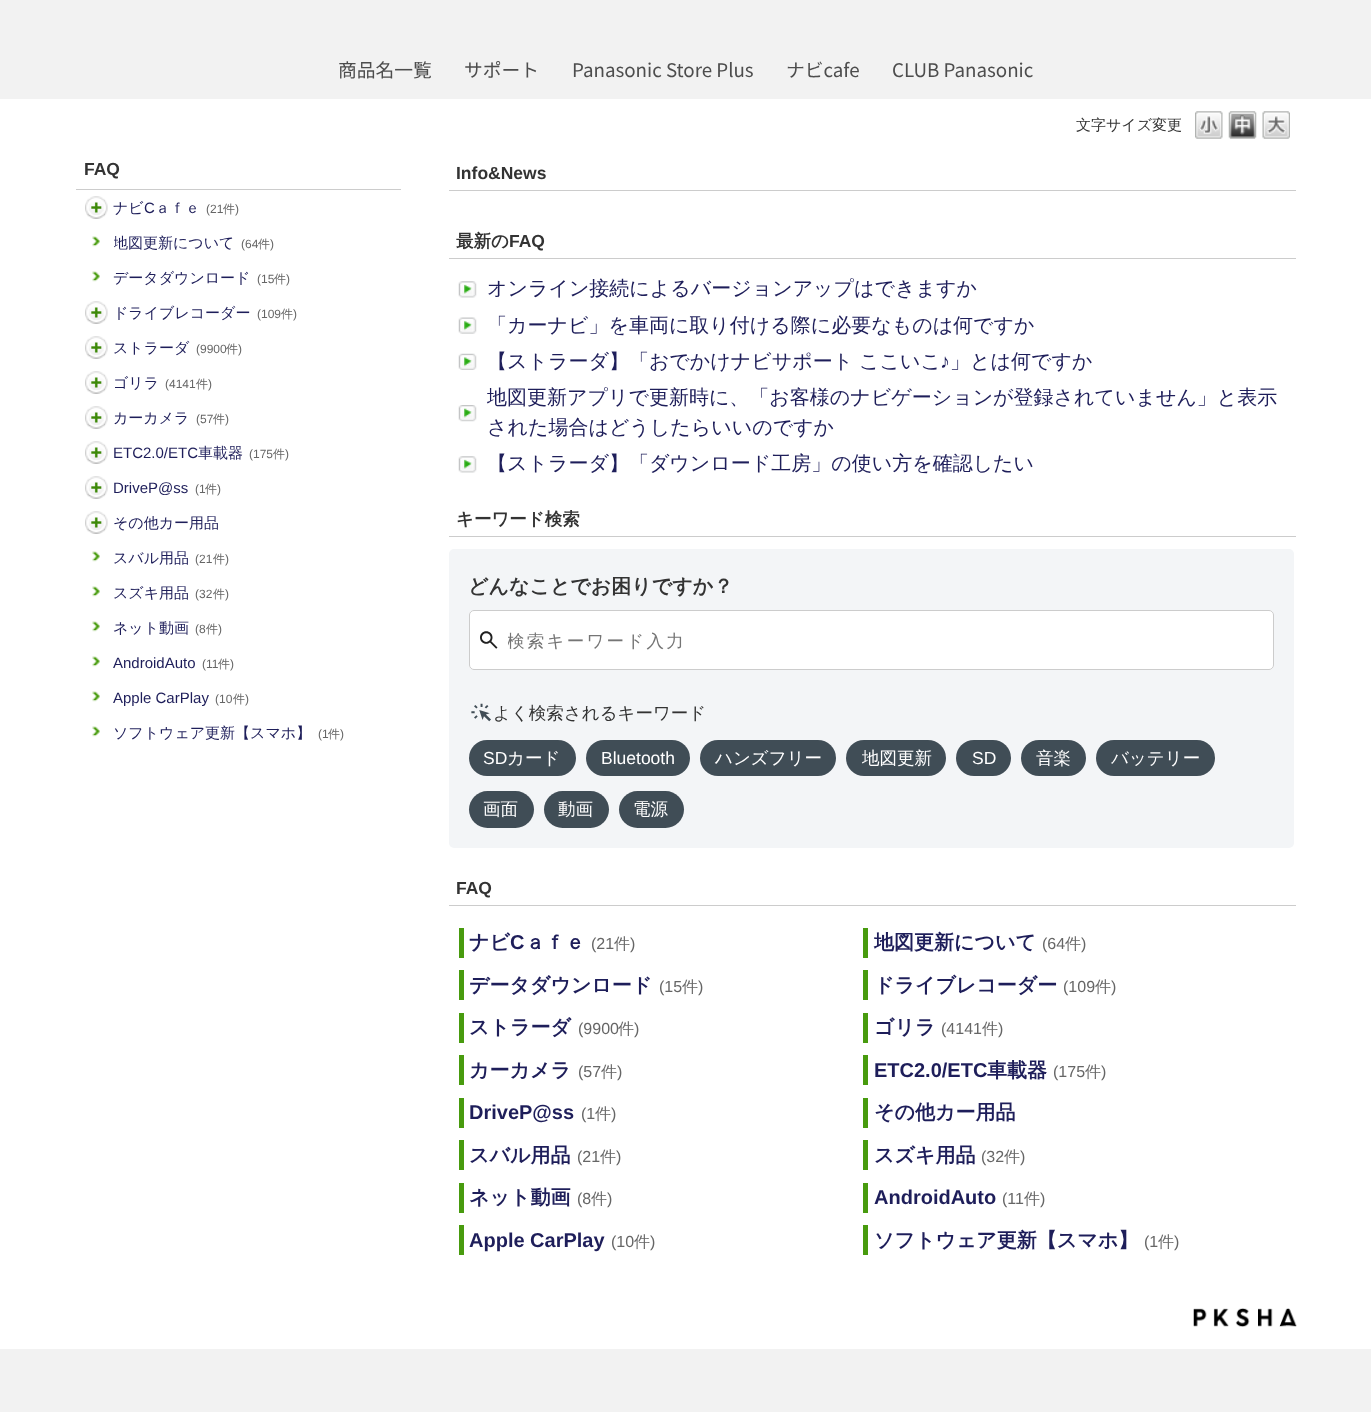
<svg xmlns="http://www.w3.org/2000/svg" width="1371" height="1412">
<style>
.a{font:100 18.75px Noto Sans JP;fill:#4d4d4d}
.b{font:500 15px WenQuanYi Zen Hei;fill:#333}
.c{font:bold 17.5px Liberation Sans;fill:#333}
.d{font:500 15px WenQuanYi Zen Hei;fill:#1e1e5a}
.e{font:15px Liberation Sans;fill:#1e1e5a}
.f{font:12px Liberation Sans;fill:#666}
.g{font:500 12px WenQuanYi Zen Hei;fill:#666}
.h{font:bold 17.5px WenQuanYi Zen Hei;fill:#333}
.i{font:500 20px WenQuanYi Zen Hei;fill:#1e1e5a}
.j{font:20px Liberation Sans;fill:#1e1e5a}
.k{font:bold 20px WenQuanYi Zen Hei;fill:#333}
.l{font:500 17.5px WenQuanYi Zen Hei;letter-spacing:2.25px;fill:#757575}
.m{font:500 17.5px WenQuanYi Zen Hei;fill:#333}
.n{font:17.5px Liberation Sans;fill:#fff}
.o{font:500 17.5px WenQuanYi Zen Hei;fill:#fff}
.p{font:bold 20px WenQuanYi Zen Hei;fill:#1e1e5a}
.q{font:bold 20px Liberation Sans;fill:#1e1e5a}
.r{font:16px Liberation Sans;fill:#666}
.s{font:500 16px WenQuanYi Zen Hei;fill:#666}
</style>
<defs>
<clipPath id="clip1"><path d="M114 231h279v24H114z"/></clipPath>
<clipPath id="clip2"><path d="M508 630h740v23H508z"/></clipPath>
</defs>
<rect width="100%" height="100%" fill="#fff"/>
<path fill="#f2f2f2" d="M0 0h1371v99H0z"/>
<image href="1.png" x="1195" y="111" width="28" height="28"/>
<image href="2.png" x="1228" y="111" width="29" height="28"/>
<image href="3.png" x="1262" y="111" width="28" height="28"/>
<path fill="#ccc" d="M76 189h325v1H76z"/>
<image href="4.png" x="85" y="196" width="23" height="23"/>
<image href="5.png" x="92" y="236" width="8" height="11"/>
<image href="5.png" x="92" y="271" width="8" height="11"/>
<image href="4.png" x="85" y="301" width="23" height="23"/>
<image href="4.png" x="85" y="336" width="23" height="23"/>
<image href="4.png" x="85" y="371" width="23" height="23"/>
<image href="4.png" x="85" y="406" width="23" height="23"/>
<image href="4.png" x="85" y="441" width="23" height="23"/>
<image href="4.png" x="85" y="476" width="23" height="23"/>
<image href="4.png" x="85" y="511" width="23" height="23"/>
<image href="5.png" x="92" y="551" width="8" height="11"/>
<image href="6.png" x="92" y="586" width="8" height="11"/>
<image href="5.png" x="92" y="621" width="8" height="11"/>
<image href="5.png" x="92" y="656" width="8" height="11"/>
<image href="5.png" x="92" y="691" width="8" height="11"/>
<image href="5.png" x="92" y="726" width="8" height="11"/>
<path fill="#ccc" d="M449 190h847v1H449z"/>
<path fill="#ccc" d="M449 258h847v1H449z"/>
<image href="7.png" x="458" y="281" width="19" height="17"/>
<image href="8.png" x="458" y="317" width="19" height="17"/>
<image href="9.png" x="458" y="353" width="19" height="17"/>
<image href="10.png" x="458" y="405" width="19" height="17"/>
<image href="7.png" x="458" y="456" width="19" height="17"/>
<path fill="#ccc" d="M449 536h847v1H449z"/>
<rect fill="#f3f5f7" x="449" y="549" width="845" height="299" rx="5"/>
<rect fill="#fff" x="469" y="610" width="805" height="60" rx="5"/>
<image href="11.png" x="480" y="631" width="18" height="18"/>
<rect fill="none" stroke="#ccc" x="469.5" y="610.5" width="804" height="59" rx="4.5"/>
<image href="12.png" x="471" y="703" width="20" height="19"/>
<rect fill="#404d56" x="469" y="740" width="107" height="36" rx="18"/>
<rect fill="#404d56" x="586" y="740" width="104" height="36" rx="18"/>
<rect fill="#404d56" x="700" y="740" width="136" height="36" rx="18"/>
<rect fill="#404d56" x="846" y="740" width="100" height="36" rx="18"/>
<rect fill="#404d56" x="956" y="740" width="55" height="36" rx="18"/>
<rect fill="#404d56" x="1021" y="740" width="65" height="36" rx="18"/>
<rect fill="#404d56" x="1096" y="740" width="119" height="36" rx="18"/>
<rect fill="#404d56" x="469" y="791" width="65" height="37" rx="18.5"/>
<rect fill="#404d56" x="544" y="791" width="65" height="37" rx="18.5"/>
<rect fill="#404d56" x="619" y="791" width="65" height="37" rx="18.5"/>
<path fill="#ccc" d="M449 905h847v1H449z"/>
<path fill="#489b0e" d="M459 928h5v30H459z"/>
<path fill="#489b0e" d="M863 928h5v30H863z"/>
<path fill="#489b0e" d="M459 970h5v30H459z"/>
<path fill="#489b0e" d="M863 970h5v30H863z"/>
<path fill="#489b0e" d="M459 1013h5v30H459z"/>
<path fill="#489b0e" d="M863 1013h5v30H863z"/>
<path fill="#489b0e" d="M459 1055h5v30H459z"/>
<path fill="#489b0e" d="M863 1055h5v30H863z"/>
<path fill="#489b0e" d="M459 1098h5v30H459z"/>
<path fill="#489b0e" d="M863 1098h5v30H863z"/>
<path fill="#489b0e" d="M459 1140h5v30H459z"/>
<path fill="#489b0e" d="M863 1140h5v30H863z"/>
<path fill="#489b0e" d="M459 1183h5v30H459z"/>
<path fill="#489b0e" d="M863 1183h5v30H863z"/>
<path fill="#489b0e" d="M459 1225h5v30H459z"/>
<path fill="#489b0e" d="M863 1225h5v30H863z"/>
<image href="13.png" x="1193" y="1308" width="104" height="19"/>
<path fill="#f2f2f2" d="M0 1349h1371v63H0z"/>
<text class="a" x="338" y="77">商品名一覧</text>
<text class="a" x="464" y="77">サポート</text>
<text class="a" x="572" y="77">Panasonic Store Plus</text>
<text class="a" x="786" y="77">ナビcafe</text>
<text class="a" x="892" y="77">CLUB Panasonic</text>
<text class="b" x="1076" y="130">文字サイズ変更</text>
<text class="c" x="84" y="175">FAQ</text>
<text class="d" x="113" y="213">ナビ</text>
<text class="e" x="144" y="213">C</text>
<text class="d" x="155" y="213">ａｆｅ</text>
<text class="f" x="206" y="213">(21</text>
<text class="g" x="223" y="213">件</text>
<text class="f" x="235" y="213">)</text>
<g clip-path="url(#clip1)">
<text class="d" x="113" y="248">地図更新について</text>
</g>
<text class="f" x="241" y="248">(64</text>
<text class="g" x="258" y="248">件</text>
<text class="f" x="270" y="248">)</text>
<text class="d" x="113" y="283">データダウンロード</text>
<text class="f" x="257" y="283">(15</text>
<text class="g" x="274" y="283">件</text>
<text class="f" x="286" y="283">)</text>
<text class="d" x="113" y="318">ドライブレコーダー</text>
<text class="f" x="257" y="318">(109</text>
<text class="g" x="281" y="318">件</text>
<text class="f" x="293" y="318">)</text>
<text class="d" x="113" y="353">ストラーダ</text>
<text class="f" x="196" y="353">(9900</text>
<text class="g" x="226" y="353">件</text>
<text class="f" x="238" y="353">)</text>
<text class="d" x="113" y="388">ゴリラ</text>
<text class="f" x="165" y="388">(4141</text>
<text class="g" x="196" y="388">件</text>
<text class="f" x="208" y="388">)</text>
<text class="d" x="113" y="423">カーカメラ</text>
<text class="f" x="196" y="423">(57</text>
<text class="g" x="213" y="423">件</text>
<text class="f" x="225" y="423">)</text>
<text class="e" x="113" y="458">ETC2.0/ETC</text>
<text class="d" x="198" y="458">車載器</text>
<text class="f" x="249" y="458">(175</text>
<text class="g" x="273" y="458">件</text>
<text class="f" x="285" y="458">)</text>
<text class="e" x="113" y="493">DriveP@ss</text>
<text class="f" x="195" y="493">(1</text>
<text class="g" x="205" y="493">件</text>
<text class="f" x="217" y="493">)</text>
<text class="d" x="113" y="528">その他カー用品</text>
<text class="d" x="113" y="563">スバル用品</text>
<text class="f" x="195" y="563">(21</text>
<text class="g" x="213" y="563">件</text>
<text class="f" x="225" y="563">)</text>
<text class="d" x="113" y="598">スズキ用品</text>
<text class="f" x="195" y="598">(32</text>
<text class="g" x="213" y="598">件</text>
<text class="f" x="225" y="598">)</text>
<text class="d" x="113" y="633">ネット動画</text>
<text class="f" x="195" y="633">(8</text>
<text class="g" x="206" y="633">件</text>
<text class="f" x="218" y="633">)</text>
<text class="e" x="113" y="668">AndroidAuto</text>
<text class="f" x="202" y="668">(11</text>
<text class="g" x="218" y="668">件</text>
<text class="f" x="230" y="668">)</text>
<text class="e" x="113" y="703">Apple CarPlay</text>
<text class="f" x="215" y="703">(10</text>
<text class="g" x="233" y="703">件</text>
<text class="f" x="245" y="703">)</text>
<text class="d" x="113" y="738">ソフトウェア更新【スマホ】</text>
<text class="f" x="318" y="738">(1</text>
<text class="g" x="328" y="738">件</text>
<text class="f" x="340" y="738">)</text>
<text class="c" x="456" y="179">Info&amp;News</text>
<text class="h" x="456" y="247">最新の</text>
<text class="c" x="509" y="247">FAQ</text>
<text class="i" x="487" y="295">オンライン接続によるバージョンアップはできますか</text>
<text class="i" x="487" y="332">「カーナビ」を車両に取り付ける際に必要なものは何ですか</text>
<text class="i" x="487" y="368">【ストラーダ】「おでかけナビサポート ここいこ</text>
<text class="j" x="940" y="368">♪</text>
<text class="i" x="950" y="368">」とは何ですか</text>
<text class="i" x="487" y="404">地図更新アプリで更新時に、「お客様のナビゲーションが登録されていません」と表示</text>
<text class="i" x="487" y="434">された場合はどうしたらいいのですか</text>
<text class="i" x="487" y="470">【ストラーダ】「ダウンロード工房」の使い方を確認したい</text>
<text class="h" x="456" y="525">キーワード検索</text>
<text class="k" x="468" y="593">どんなことでお困りですか？</text>
<g clip-path="url(#clip2)">
<text class="l" x="507" y="647">検索キーワード入力</text>
</g>
<text class="m" x="493" y="719">よく検索されるキーワード</text>
<text class="n" x="483" y="764">SD</text>
<text class="o" x="507" y="764">カード</text>
<text class="n" x="601" y="764">Bluetooth</text>
<text class="o" x="715" y="764">ハンズフリー</text>
<text class="o" x="862" y="764">地図更新</text>
<text class="n" x="972" y="764">SD</text>
<text class="o" x="1036" y="764">音楽</text>
<text class="o" x="1111" y="764">バッテリー</text>
<text class="o" x="483" y="815">画面</text>
<text class="o" x="558" y="815">動画</text>
<text class="o" x="633" y="815">電源</text>
<text class="c" x="456" y="894">FAQ</text>
<text class="p" x="469" y="949">ナビ</text>
<text class="q" x="510" y="949">C</text>
<text class="p" x="525" y="949">ａｆｅ</text>
<text class="r" x="591" y="949">(21</text>
<text class="s" x="614" y="949">件</text>
<text class="r" x="630" y="949">)</text>
<text class="p" x="874" y="949">地図更新について</text>
<text class="r" x="1042" y="949">(64</text>
<text class="s" x="1065" y="949">件</text>
<text class="r" x="1081" y="949">)</text>
<text class="p" x="469" y="992">データダウンロード</text>
<text class="r" x="659" y="992">(15</text>
<text class="s" x="682" y="992">件</text>
<text class="r" x="698" y="992">)</text>
<text class="p" x="874" y="992">ドライブレコーダー</text>
<text class="r" x="1063" y="992">(109</text>
<text class="s" x="1095" y="992">件</text>
<text class="r" x="1111" y="992">)</text>
<text class="p" x="469" y="1034">ストラーダ</text>
<text class="r" x="578" y="1034">(9900</text>
<text class="s" x="618" y="1034">件</text>
<text class="r" x="634" y="1034">)</text>
<text class="p" x="874" y="1034">ゴリラ</text>
<text class="r" x="941" y="1034">(4141</text>
<text class="s" x="982" y="1034">件</text>
<text class="r" x="998" y="1034">)</text>
<text class="p" x="469" y="1077">カーカメラ</text>
<text class="r" x="578" y="1077">(57</text>
<text class="s" x="601" y="1077">件</text>
<text class="r" x="617" y="1077">)</text>
<text class="q" x="874" y="1077">ETC2.0/ETC</text>
<text class="p" x="987" y="1077">車載器</text>
<text class="r" x="1053" y="1077">(175</text>
<text class="s" x="1085" y="1077">件</text>
<text class="r" x="1101" y="1077">)</text>
<text class="q" x="469" y="1119">DriveP@ss</text>
<text class="r" x="581" y="1119">(1</text>
<text class="s" x="595" y="1119">件</text>
<text class="r" x="611" y="1119">)</text>
<text class="p" x="874" y="1119">その他カー用品</text>
<text class="p" x="469" y="1162">スバル用品</text>
<text class="r" x="577" y="1162">(21</text>
<text class="s" x="600" y="1162">件</text>
<text class="r" x="616" y="1162">)</text>
<text class="p" x="874" y="1162">スズキ用品</text>
<text class="r" x="981" y="1162">(32</text>
<text class="s" x="1004" y="1162">件</text>
<text class="r" x="1020" y="1162">)</text>
<text class="p" x="469" y="1204">ネット動画</text>
<text class="r" x="577" y="1204">(8</text>
<text class="s" x="591" y="1204">件</text>
<text class="r" x="607" y="1204">)</text>
<text class="q" x="874" y="1204">AndroidAuto</text>
<text class="r" x="1002" y="1204">(11</text>
<text class="s" x="1024" y="1204">件</text>
<text class="r" x="1040" y="1204">)</text>
<text class="q" x="469" y="1247">Apple CarPlay</text>
<text class="r" x="611" y="1247">(10</text>
<text class="s" x="634" y="1247">件</text>
<text class="r" x="650" y="1247">)</text>
<text class="p" x="874" y="1247">ソフトウェア更新【スマホ】</text>
<text class="r" x="1144" y="1247">(1</text>
<text class="s" x="1158" y="1247">件</text>
<text class="r" x="1174" y="1247">)</text>
</svg>
